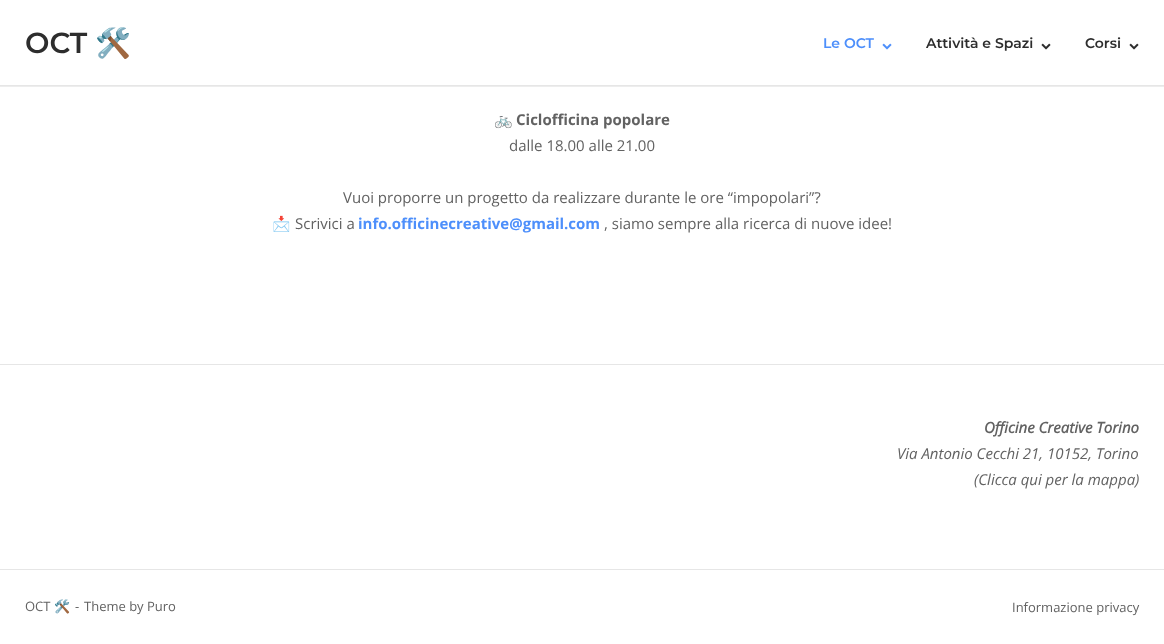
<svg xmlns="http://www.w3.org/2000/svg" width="1164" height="644">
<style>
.a{font:600 29px Montserrat;fill:#2d2d2d}
.b{font:bold 29px Noto Color Emoji;fill:#2d2d2d}
.c{font:600 14px Montserrat;fill:#4d8ffb}
.d{font:600 14px Montserrat;fill:#2d2d2d}
.e{font:15px Noto Color Emoji;fill:#626262}
.f{font:bold 15px Open Sans;fill:#626262}
.g{font:15px Open Sans;fill:#626262}
.h{font:bold 15px Open Sans;fill:#4d8ffb}
.i{font:italic bold 15px Open Sans;fill:#626262}
.j{font:italic 15px Open Sans;fill:#626262}
.k{font:13px Open Sans;fill:#626262}
.l{font:13px Noto Color Emoji;fill:#626262}
</style>
<rect width="100%" height="100%" fill="#fff"/>
<path fill="#00000012" filter="blur(0.5px)" d="M0 1h1164v86H0z"/>
<path fill="#fff" d="M0 1h1164v84H0z"/>
<path fill="#e6e6e6" d="M0 85h1164v1H0z"/>
<image href="1.png" x="882" y="43" width="10" height="7"/>
<image href="2.png" x="1041" y="43" width="10" height="7"/>
<image href="2.png" x="1129" y="43" width="10" height="7"/>
<path fill="#e6e6e6" d="M0 364h1164v1H0z"/>
<path fill="#e6e6e6" d="M0 569h1164v1H0z"/>
<text class="a" x="25" y="53">OCT</text>
<text class="b" x="95" y="53">🛠️</text>
<text class="c" x="823" y="48">Le OCT</text>
<text class="d" x="926" y="48">Attività e Spazi</text>
<text class="d" x="1085" y="48">Corsi</text>
<text class="e" x="494" y="125">🚲</text>
<text class="f" x="516" y="125">Ciclofficina popolare</text>
<text class="g" x="509" y="151">dalle 18.00 alle 21.00</text>
<text class="g" x="343" y="203">Vuoi proporre un progetto da realizzare durante le ore “impopolari”?</text>
<text class="e" x="272" y="229">📩</text>
<text class="g" x="295" y="229">Scrivici a</text>
<text class="h" x="358" y="229">info.officinecreative@gmail.com</text>
<text class="g" x="604" y="229">, siamo sempre alla ricerca di nuove idee!</text>
<text class="i" x="984" y="433">Officine Creative Torino</text>
<text class="j" x="897" y="459">Via Antonio Cecchi 21, 10152, Torino</text>
<text class="j" x="974" y="485">(Clicca qui per la mappa)</text>
<text class="k" x="25" y="611">OCT</text>
<text class="l" x="54" y="611">🛠️</text>
<text class="k" x="75" y="611">-</text>
<text class="k" x="84" y="611">Theme by Puro</text>
<text class="k" x="1012" y="612">Informazione privacy</text>
</svg>
